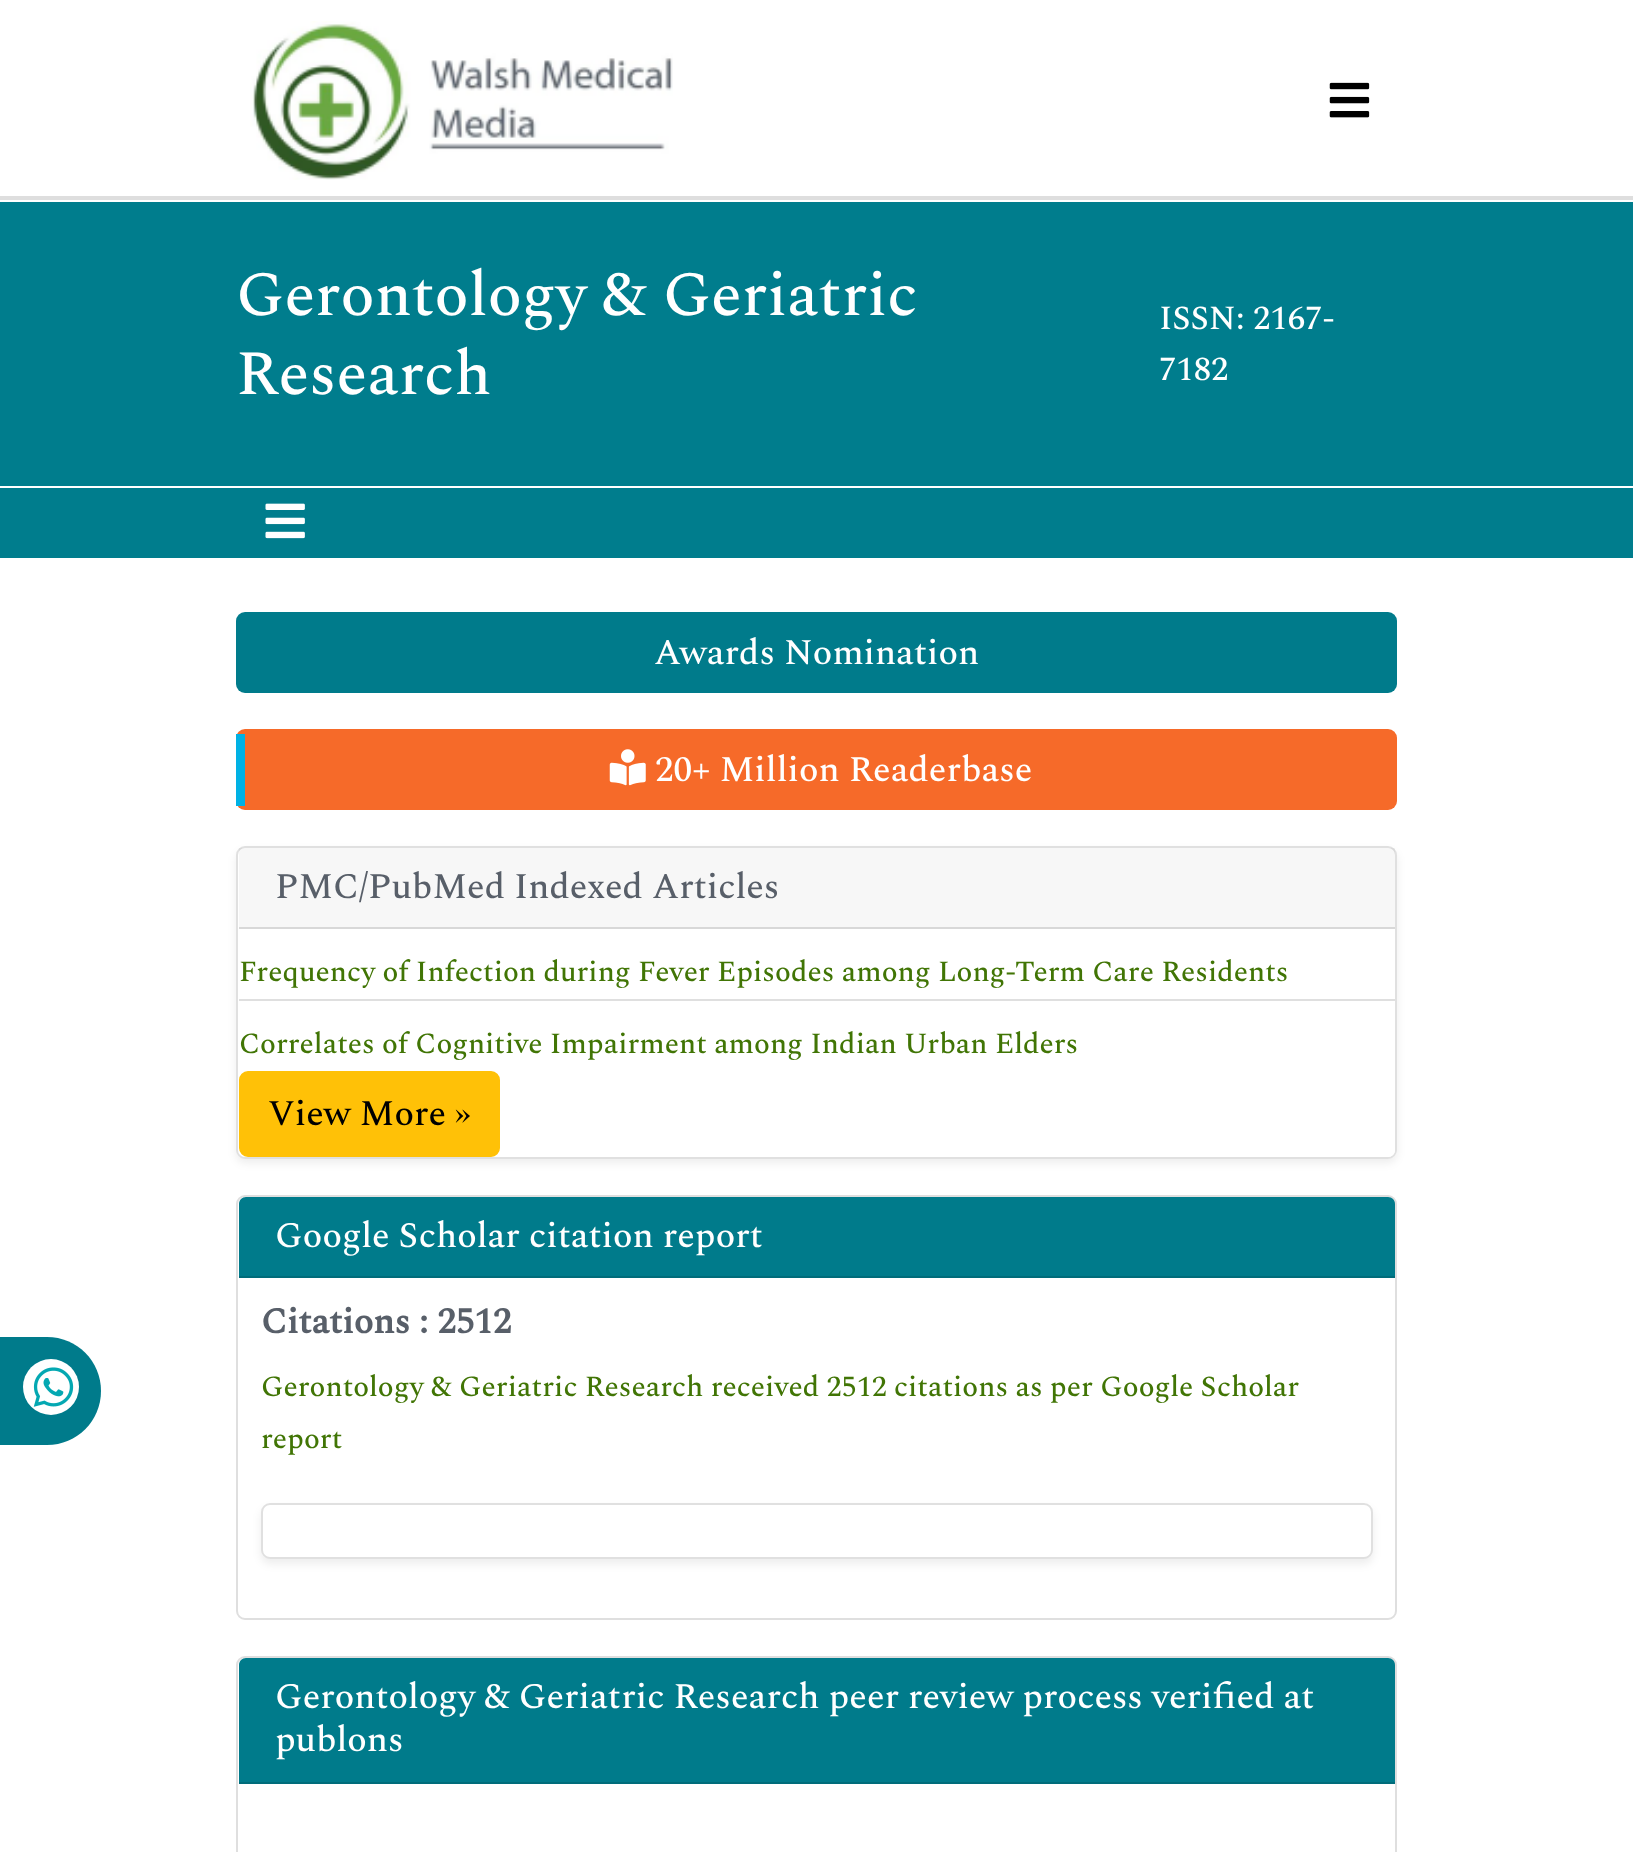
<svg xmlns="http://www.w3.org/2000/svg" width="1633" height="1852">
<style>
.a{font:500 63px Spectral;fill:#fff}
.b{font:500 33.75px Spectral;fill:#fff}
.c{font:500 36px Spectral;fill:#fff}
.d{font:500 36px Spectral;fill:#585f69}
.e{font:500 29.25px Spectral;fill:#417505}
.f{font:500 36px Spectral;fill:#000}
.g{font:bold 36px Spectral;fill:#585f69}
</style>
<rect width="100%" height="100%" fill="#fff"/>
<path fill="#dedede" d="M0 196h1633v4H0z"/>
<image href="1.png" x="250" y="21" width="423" height="159"/>
<image href="2.png" x="1329" y="82" width="41" height="36"/>
<path fill="#007d8d" d="M0 202h1633v356H0z"/>
<path fill="#fff" d="M0 486h1633v2H0z"/>
<image href="3.png" x="265" y="503" width="40" height="36"/>
<path fill="#007b8b" d="M-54 1337h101c30 0 54 24 54 54c0 30-24 54-54 54h-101z"/>
<circle fill="#fff" cx="51" cy="1387" r="28"/>
<image href="4.png" x="33" y="1367" width="41" height="40"/>
<rect fill="#007b8b" x="236" y="612" width="1161" height="81" rx="9"/>
<rect fill="#f66a29" x="236" y="729" width="1161" height="81" rx="9"/>
<path fill="#00b1e4" d="M236 734h9v72H236z"/>
<image href="5.png" x="609" y="749" width="37" height="37"/>
<rect fill="#00000012" filter="blur(4.5px)" x="236" y="851" width="1161" height="312" rx="9"/>
<rect fill="#fff" x="236" y="846" width="1161" height="313" rx="9"/>
<rect fill="none" stroke="#0000001f" stroke-width="2" x="237" y="847" width="1159" height="311" rx="8"/>
<path fill="#00000008" d="M239 848h1156v79H239z"/>
<path fill="#d8d8d8" d="M239 927h1156v2H239z"/>
<path fill="#dfdfdf" d="M239 999h1156v2H239z"/>
<path fill="#fff" d="M239 1001h1156v149c0 4-3 7-7 7h-1142c-4 0-7-3-7-7z"/>
<rect fill="#ffc107" stroke="#ffc107" stroke-width="2" x="240" y="1072" width="259" height="84" rx="8"/>
<rect fill="none" stroke="#dfdfdf" stroke-width="2" x="237" y="1196" width="1159" height="423" rx="8"/>
<path fill="#007b8b" d="M246 1197h1142c4 0 7 3 7 7v74h-1156v-74c0-4 3-7 7-7z"/>
<path fill="#006c7a" d="M239 1276h1156v2H239z"/>
<rect fill="#00000012" filter="blur(4.5px)" x="261" y="1508" width="1112" height="56" rx="9"/>
<rect fill="#fff" x="261" y="1503" width="1112" height="56" rx="9"/>
<rect fill="none" stroke="#0000001f" stroke-width="2" x="262" y="1504" width="1110" height="54" rx="8"/>
<rect fill="none" stroke="#dfdfdf" stroke-width="2" x="237" y="1657" width="1159" height="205" rx="8"/>
<path fill="#007b8b" d="M246 1658h1142c4 0 7 3 7 7v119h-1156v-119c0-4 3-7 7-7z"/>
<path fill="#006c7a" d="M239 1782h1156v2H239z"/>
<text class="a" x="236" y="315">Gerontology &amp; Geriatric</text>
<text class="a" x="236" y="394">Research</text>
<text class="b" x="1159" y="329">ISSN: 2167-</text>
<text class="b" x="1159" y="380">7182</text>
<text class="c" x="654" y="664">Awards Nomination</text>
<text class="c" x="655" y="781">20+ Million Readerbase</text>
<text class="d" x="275" y="898">PMC/PubMed Indexed Articles</text>
<text class="e" x="239" y="981">Frequency of Infection during Fever Episodes among Long-Term Care Residents</text>
<text class="e" x="239" y="1053">Correlates of Cognitive Impairment among Indian Urban Elders</text>
<text class="f" x="268" y="1125">View More »</text>
<text class="c" x="275" y="1247">Google Scholar citation report</text>
<text class="g" x="261" y="1333">Citations : 2512</text>
<text class="e" x="261" y="1396">Gerontology &amp; Geriatric Research received 2512 citations as per Google Scholar</text>
<text class="e" x="261" y="1448">report</text>
<text class="c" x="275" y="1708">Gerontology &amp; Geriatric Research peer review process verified at</text>
<text class="c" x="275" y="1751">publons</text>
</svg>
